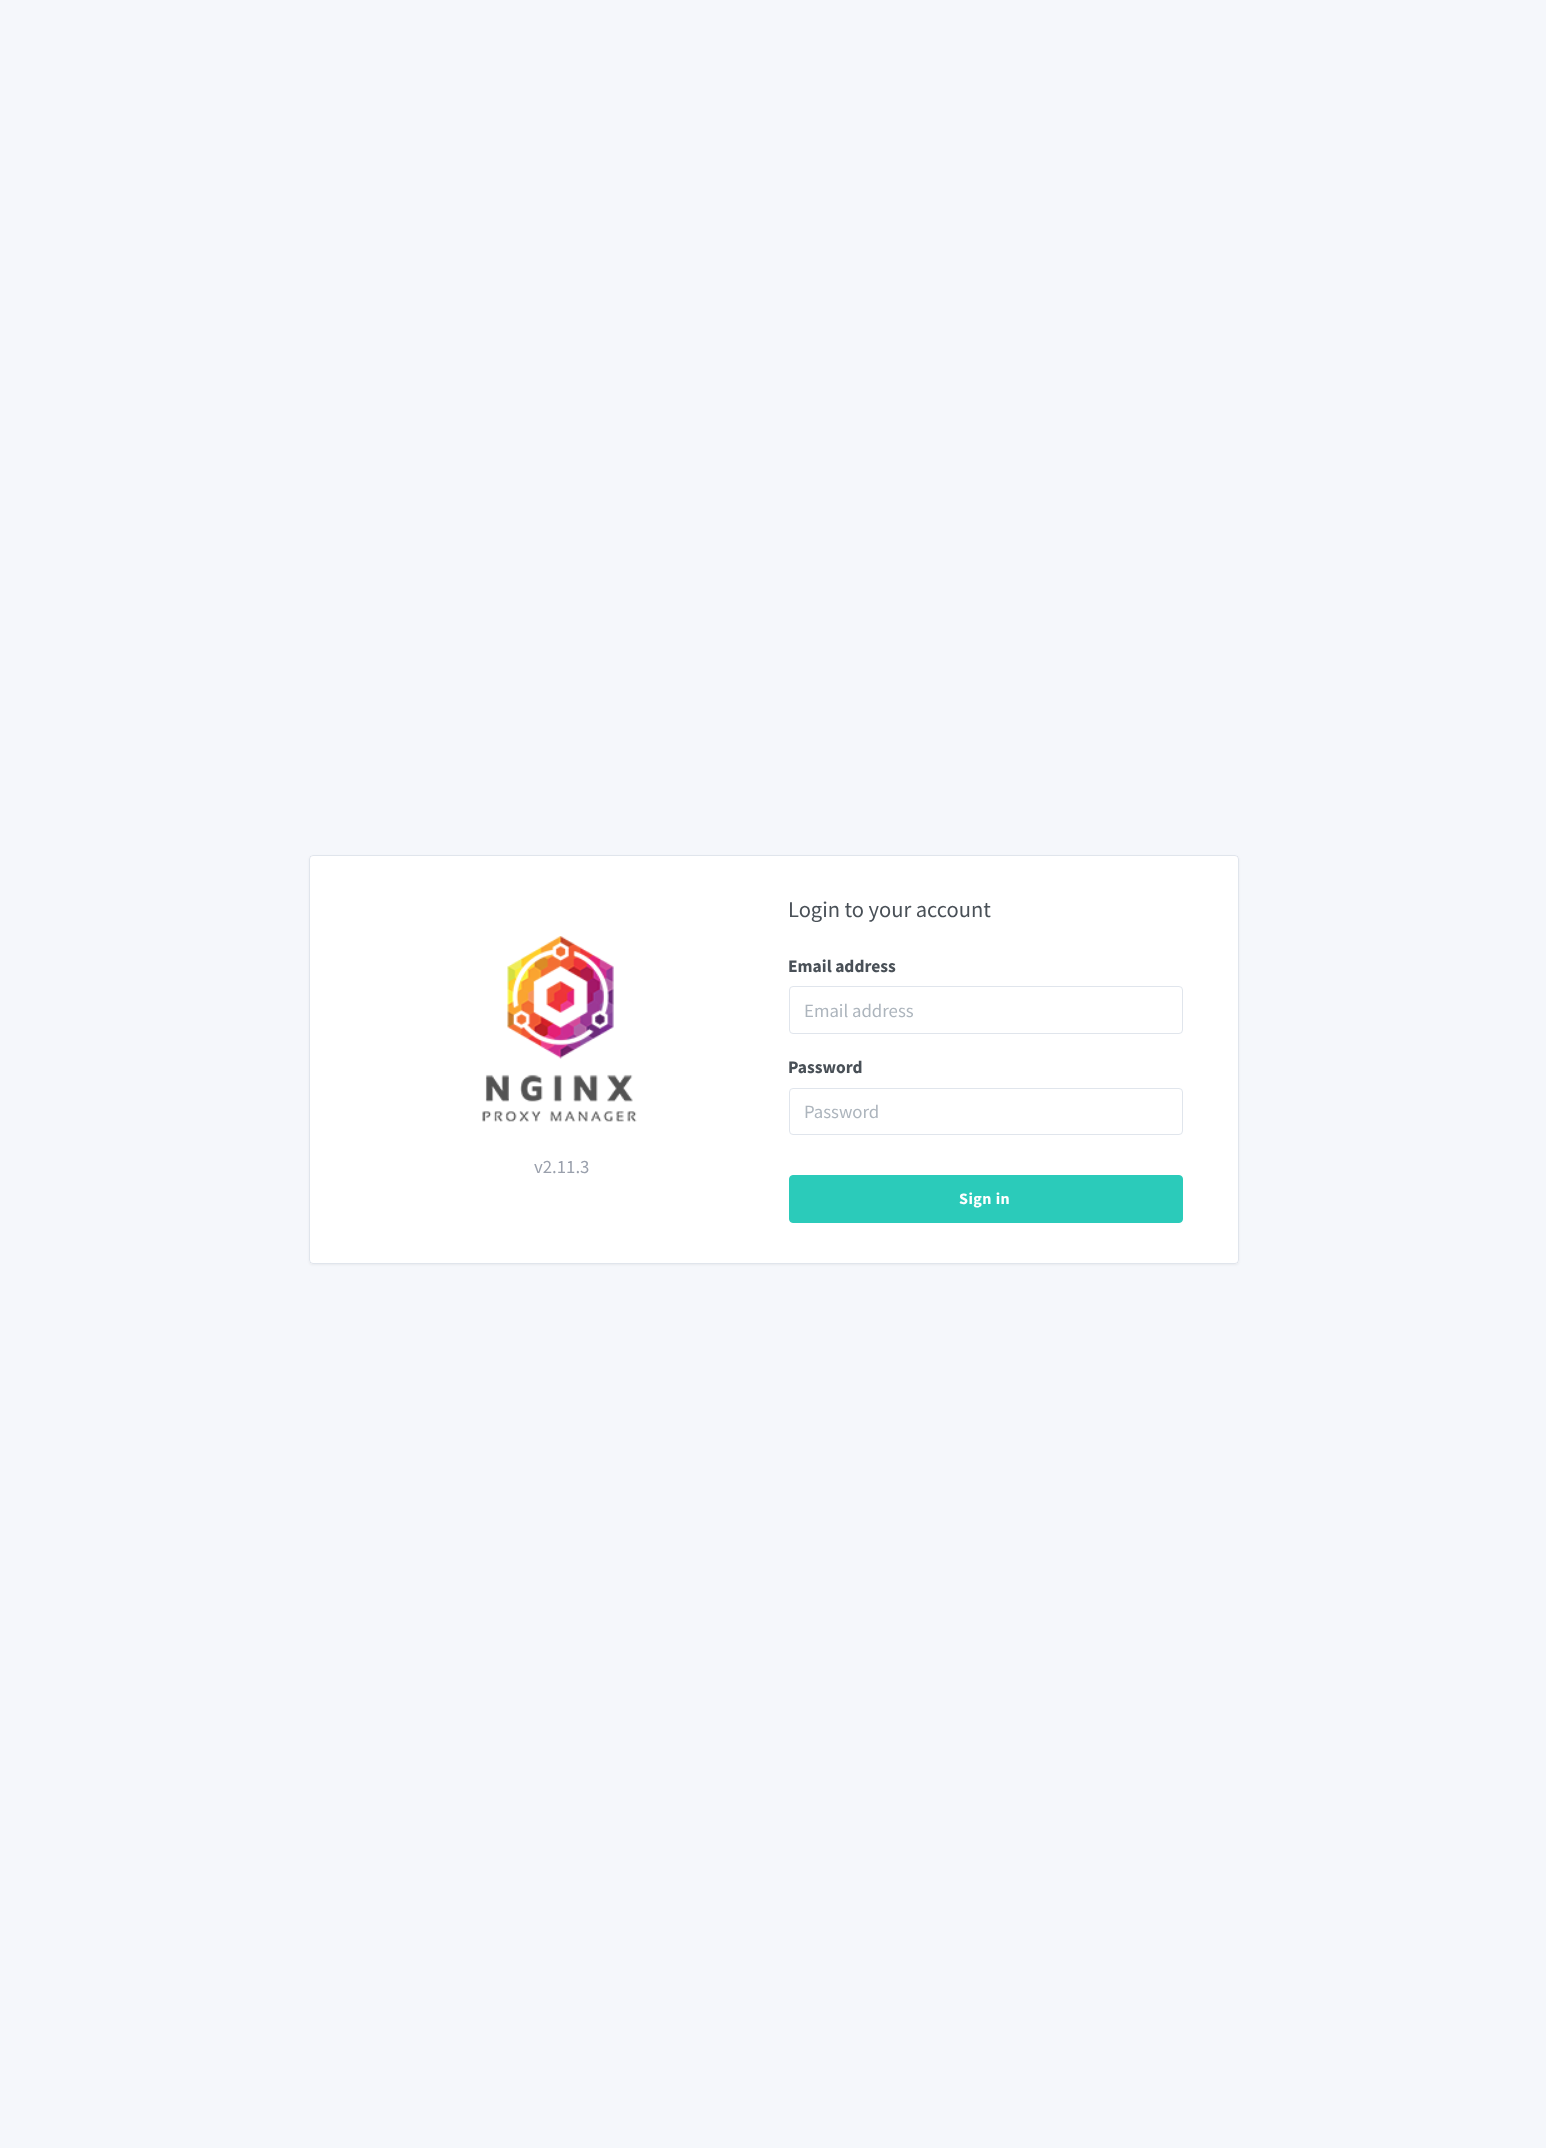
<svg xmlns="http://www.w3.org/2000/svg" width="1546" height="2148">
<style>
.a{font:18.75px Source Sans Pro;fill:#9aa0ac}
.b{font:22.5px Source Sans Pro;fill:#495057}
.c{font:bold 17.5px Source Sans Pro;fill:#495057}
.d{font:18.75px Source Sans Pro;fill:#adb5bd}
.e{font:bold 16px Source Sans Pro;letter-spacing:0.5px;fill:#fff}
</style>
<rect width="100%" height="100%" fill="#f5f7fb"/>
<rect fill="#0000000d" filter="blur(1px)" x="309" y="856" width="930" height="409" rx="4"/>
<rect fill="#fff" x="309" y="855" width="930" height="409" rx="4"/>
<rect fill="none" stroke="#0028641f" x="309.5" y="855.5" width="929" height="408" rx="3.5"/>
<image href="1.png" x="482" y="936" width="155" height="186"/>
<rect fill="none" stroke="#e0e5ec" x="789.5" y="986.5" width="393" height="47" rx="3.5"/>
<rect fill="none" stroke="#e0e5ec" x="789.5" y="1088.5" width="393" height="46" rx="3.5"/>
<rect fill="#2bcbba" stroke="#2bcbba" x="789.5" y="1175.5" width="393" height="47" rx="3.5"/>
<text class="a" x="534" y="1173">v2.11.3</text>
<text class="b" x="788" y="917">Login to your account</text>
<text class="c" x="788" y="972">Email address</text>
<text class="d" x="804" y="1017">Email address</text>
<text class="c" x="788" y="1073">Password</text>
<text class="d" x="804" y="1118">Password</text>
<text class="e" x="959" y="1204">Sign in</text>
</svg>
